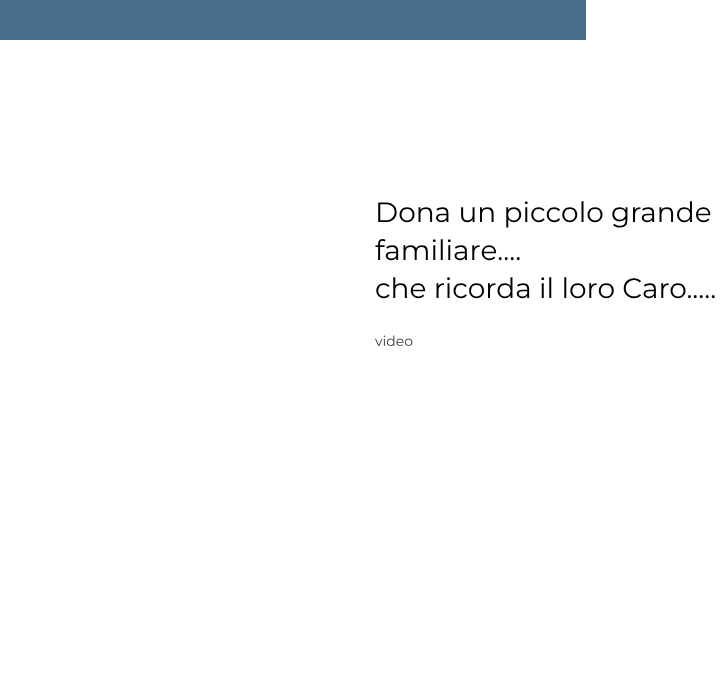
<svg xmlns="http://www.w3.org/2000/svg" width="724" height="691">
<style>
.a{font:28px Montserrat;fill:#000}
.b{font:14px Montserrat;fill:#404040}
</style>
<rect width="100%" height="100%" fill="#fff"/>
<path fill="#496e8c" d="M0 0h586v40H0z"/>
<text class="a" x="375" y="222">Dona un piccolo grande</text>
<text class="a" x="375" y="260">familiare....</text>
<text class="a" x="375" y="298">che ricorda il loro Caro.....</text>
<text class="b" x="375" y="346">video</text>
</svg>
